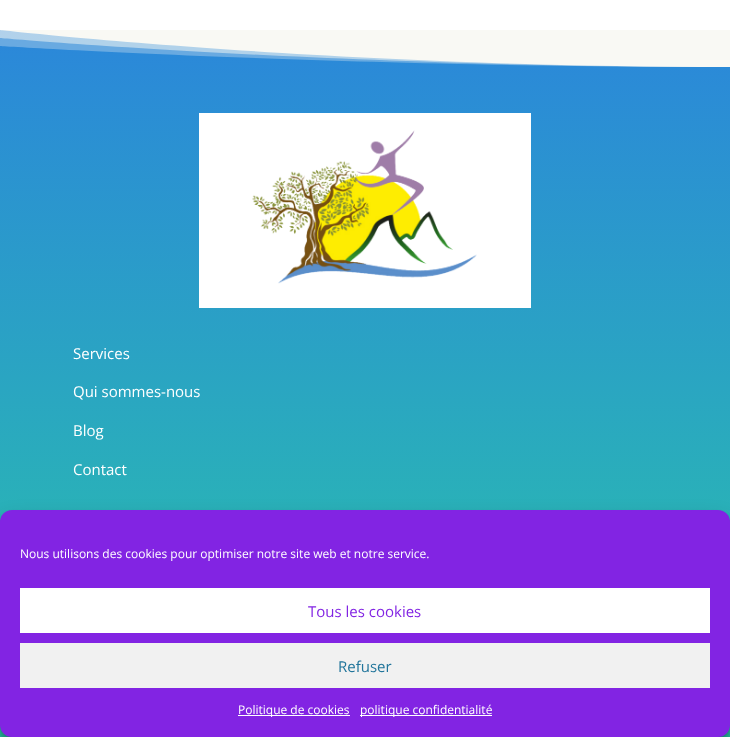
<svg xmlns="http://www.w3.org/2000/svg" width="730" height="737">
<style>
.a{font:15px Open Sans;fill:#fff}
.b{font:12px Open Sans;fill:#fff}
.c{font:15px Open Sans;fill:#8224e3}
.d{font:15px Open Sans;fill:#21759b}
</style>
<defs>
<linearGradient id="g1" gradientUnits="userSpaceOnUse" x1="365" y1="30" x2="365" y2="737"><stop offset="0" stop-color="#2b87da"/><stop offset="1" stop-color="#29c4a9"/></linearGradient>
</defs>
<rect width="100%" height="100%" fill="#fff"/>
<path fill="url(#g1)" d="M0 30h730v707H0z"/>
<path fill="#f9f9f44d" d="M0 30v16c0 0 327 21 730 21v-37z"/>
<path fill="#f9f9f480" d="M0 30v8c0 0 327 29 730 29v-37z"/>
<path fill="#f9f9f4" d="M0 30c0 0 327 37 730 37v-37z"/>
<path fill="#fff" d="M199 113h332v195H199z"/>
<image href="1.png" x="252" y="130" width="225" height="154"/>
<rect fill="#0000003b" filter="blur(3px)" y="516" width="730" height="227" rx="12"/>
<rect fill="#00000030" filter="blur(10px)" y="520" width="730" height="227" rx="12"/>
<rect fill="#8224e3" y="510" width="730" height="227" rx="12"/>
<path fill="#fff" d="M20 588h690v45H20z"/>
<path fill="#f1f1f1" d="M20 643h690v45H20z"/>
<path fill="#fff" d="M238 715h112v1H238z"/>
<path fill="#fff" d="M360 715h132v1H360z"/>
<text class="a" x="73" y="359">Services</text>
<text class="a" x="73" y="397">Qui sommes-nous</text>
<text class="a" x="73" y="436">Blog</text>
<text class="a" x="73" y="475">Contact</text>
<text class="b" x="20" y="558">Nous utilisons des cookies pour optimiser notre site web et notre service.</text>
<text class="c" x="308" y="617">Tous les cookies</text>
<text class="d" x="338" y="672">Refuser</text>
<text class="b" x="238" y="714">Politique de cookies</text>
<text class="b" x="360" y="714">politique confidentialité</text>
</svg>
